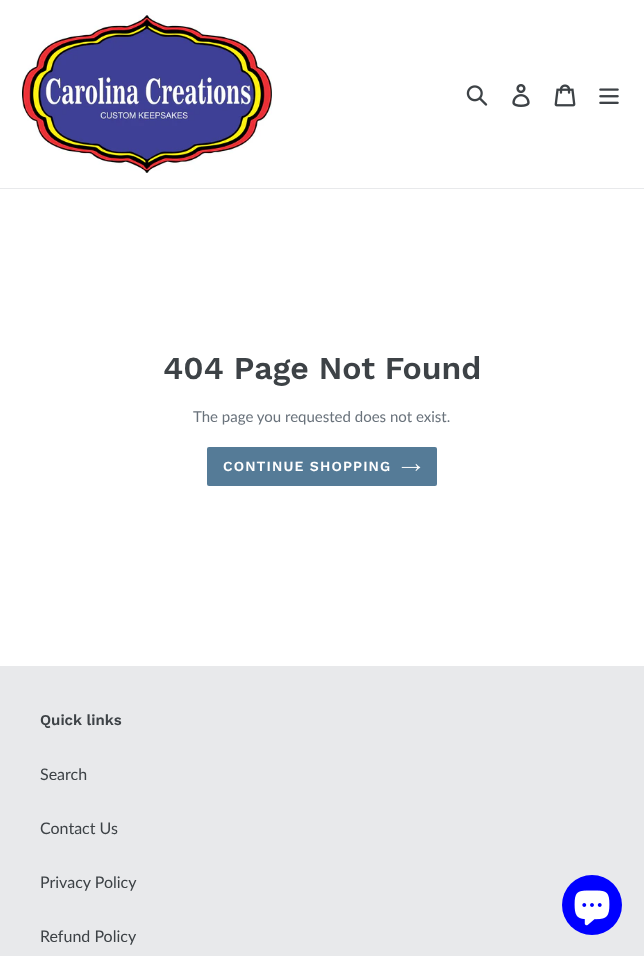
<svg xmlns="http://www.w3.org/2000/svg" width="644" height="956">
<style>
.a{font:600 32px Work Sans;fill:#3d4246}
.b{font:15px Lato;fill:#69727b}
.c{font:600 14px Work Sans;letter-spacing:1.1px;fill:#fff}
.d{font:600 15px Work Sans;fill:#3d4246}
.e{font:16px Lato;fill:#3d4246}
</style>
<rect width="100%" height="100%" fill="#fff"/>
<path fill="#e8e9eb" d="M0 188h644v1H0z"/>
<image href="1.png" x="22" y="15" width="250" height="158"/>
<image href="2.png" x="466" y="85" width="22" height="21"/>
<image href="3.png" x="512" y="84" width="18" height="23"/>
<image href="4.png" x="554" y="84" width="22" height="23"/>
<image href="5.png" x="599" y="88" width="20" height="16"/>
<rect fill="#557b97" x="207" y="447" width="230" height="39" rx="2"/>
<image href="6.png" x="401" y="463" width="20" height="8"/>
<path fill="#e8e9eb" d="M0 666h644v290H0z"/>
<circle fill="#00f" cx="592" cy="905" r="30"/>
<image href="7.png" x="574" y="890" width="36" height="36"/>
<text class="a" x="163" y="379">404 Page Not Found</text>
<text class="b" x="193" y="422">The page you requested does not exist.</text>
<text class="c" x="223" y="471">CONTINUE SHOPPING</text>
<text class="d" x="40" y="725">Quick links</text>
<text class="e" x="40" y="780">Search</text>
<text class="e" x="40" y="834">Contact Us</text>
<text class="e" x="40" y="888">Privacy Policy</text>
<text class="e" x="40" y="942">Refund Policy</text>
</svg>
